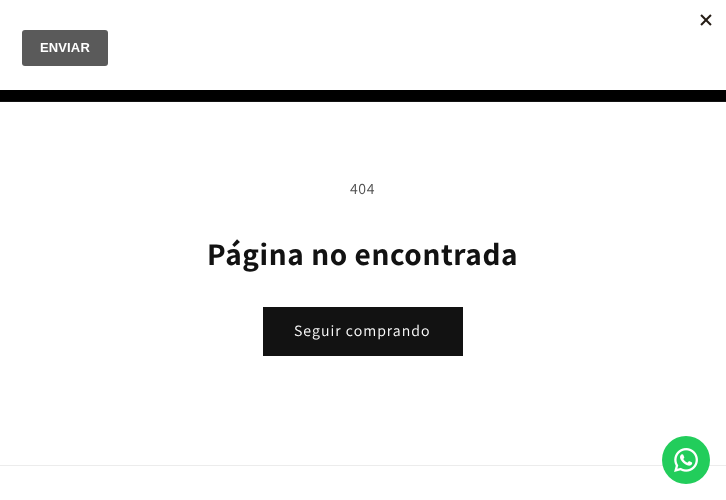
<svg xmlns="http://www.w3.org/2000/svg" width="726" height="500">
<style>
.a{font:15.75px Assistant;letter-spacing:0.6px;fill:#4d4d4d}
.b{font:bold 31.5px Assistant;letter-spacing:0.6px;fill:#121212}
.c{font:15.75px Assistant;letter-spacing:1px;fill:#fff}
</style>
<rect width="100%" height="100%" fill="#fff"/>
<image href="1.png" x="22" y="14" width="690" height="52"/>
<path fill="#000" d="M0 90h726v11H0z"/>
<path fill="#141414" d="M0 101h726v1H0z"/>
<path fill="#121212" d="M263 307h200v49H263z"/>
<path fill="#ececec" d="M0 465h726v1H0z"/>
<circle fill="#22cd5b" cx="686" cy="460" r="24"/>
<image href="2.png" x="674" y="448" width="24" height="24"/>
<text class="a" x="350" y="194">404</text>
<text class="b" x="207" y="265">Página no encontrada</text>
<text class="c" x="294" y="336">Seguir comprando</text>
</svg>
